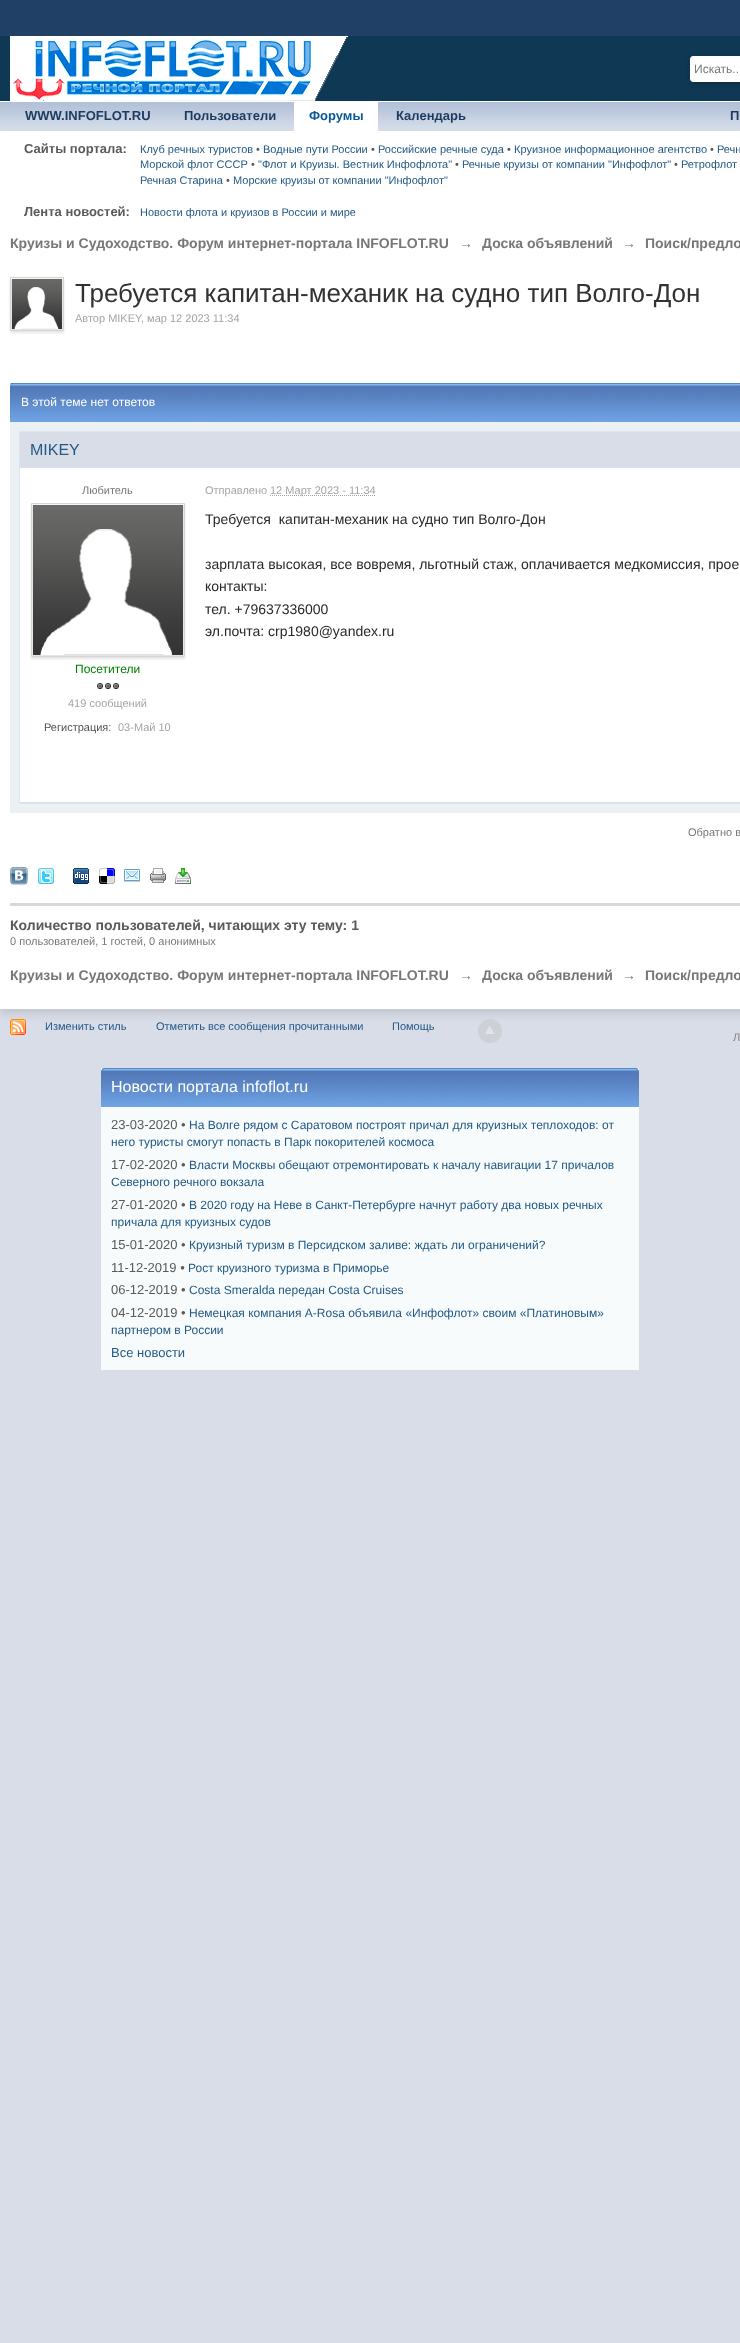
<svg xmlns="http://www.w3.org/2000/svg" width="740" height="2343">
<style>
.a{font:12px Liberation Sans;fill:#777}
.b{font:bold 13px Liberation Sans;fill:#1c3b5f}
.c{font:bold 13px Liberation Sans;fill:#0b5794}
.d{font:bold 13px Liberation Sans;fill:#5a5a5a}
.e{font:11px Liberation Sans;fill:#225985}
.f{font:11px Liberation Sans;fill:#5a5a5a}
.g{font:bold 14px Liberation Sans;fill:#777}
.h{font:26px Liberation Sans;fill:#323232}
.i{font:11px Liberation Sans;fill:#a4a4a4}
.j{font:12px Liberation Sans;fill:#fff}
.k{font:16px Liberation Sans;fill:#225985}
.l{font:11px Liberation Sans;fill:#777}
.m{font:12px Liberation Sans;fill:#008000}
.n{font:11px Liberation Sans;fill:#505050}
.o{font:14px Liberation Sans;fill:#282828}
.p{font:bold 14px Liberation Sans;fill:#5a5a5a}
.q{font:11px Liberation Sans;fill:#848484}
.r{font:16px Liberation Sans;fill:#fff}
.s{font:13px Liberation Sans;fill:#5a5a5a}
.t{font:12px Liberation Sans;fill:#225985}
.u{font:13px Liberation Sans;fill:#225985}
</style>
<rect width="100%" height="100%" fill="#d8dde8"/>
<path fill="#204066" d="M0 0h740v36H0z"/>
<path fill="#0f3854" d="M0 36h740v65H0z"/>
<path fill="#fff" d="M0 101h740v1H0z"/>
<image href="1.png" x="10" y="36" width="339" height="65"/>
<rect fill="#00000033" filter="blur(2px)" x="690" y="58" width="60" height="26" rx="4"/>
<path fill="#fff" d="M693 56h47c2 0 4 2 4 4v18c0 2-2 4-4 4h-47c-1.5 0-3-1.5-3-3v-20c0-1.5 1.5-3 3-3z"/>
<image href="2.png" x="0" y="102" width="740" height="27"/>
<path fill="#0000001a" filter="blur(4.5px)" d="M0 136h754v878H0z"/>
<path fill="#fff" d="M294 102h84v29H294z"/>
<path fill="#fff" d="M0 131h740v878H0z"/>
<path fill="#0000001a" filter="blur(1px)" d="M10 279h54v54H10z"/>
<path fill="none" stroke="#d5d5d5" d="M10.5 277.5h53v53H10.5z"/>
<image href="3.png" x="12" y="279" width="50" height="50"/>
<image href="4.png" x="10" y="383" width="730" height="39"/>
<path fill="#528cbc" d="M14 384h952c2 0 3 1 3 3c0-2-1-4-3-4h-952c-2 0-3 2-3 4c0-2 1-3 3-3z"/>
<path fill="#ebf0f3" d="M10 422h730v391H10z"/>
<path fill="#fff" d="M20 468h720v334H20z"/>
<path fill="none" stroke="#dbe4ef" d="M19.5 431.5h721v372H19.5z"/>
<path fill="#d6e2eb" d="M20 802h720v1H20z"/>
<path fill="#d8dde8" d="M20 432h720v36H20z"/>
<path fill="#0000001a" filter="blur(1px)" d="M31 505h154v154H31z"/>
<path fill="none" stroke="#d5d5d5" d="M31.5 503.5h153v153H31.5z"/>
<image href="5.png" x="33" y="505" width="150" height="150"/>
<image href="6.png" x="97" y="683" width="6" height="6"/>
<image href="6.png" x="105" y="683" width="6" height="6"/>
<image href="6.png" x="113" y="683" width="6" height="6"/>
<path fill="none" stroke="#a4a4a4" stroke-dasharray="1 1" d="M270 495.5h106"/>
<image href="7.png" x="10" y="867" width="18" height="18"/>
<image href="8.png" x="38" y="868" width="16" height="16"/>
<image href="9.png" x="73" y="868" width="16" height="16"/>
<image href="10.png" x="99" y="868" width="16" height="16"/>
<image href="11.png" x="124" y="869" width="16" height="13"/>
<image href="12.png" x="150" y="868" width="16" height="15"/>
<image href="13.png" x="175" y="868" width="16" height="16"/>
<path fill="#d8d8d8" d="M10 903h730v3H10z"/>
<image href="14.png" x="10" y="1019" width="16" height="16"/>
<circle fill="#bdbdbd66" cx="490" cy="1031" r="12"/>
<image href="15.png" x="485" y="1026" width="10" height="8"/>
<path fill="#f7fbfc" d="M101 1068h538v302H101z"/>
<image href="16.png" x="101" y="1068" width="538" height="39"/>
<path fill="#528cbc" d="M105 1069h530c2 0 4 2 4 4v-1c0-2-2-4-4-4h-530c-2 0-4 2-4 4v1c0-2 2-4 4-4z"/>
<text class="a" x="694" y="73">Искать..</text>
<text class="b" x="25" y="120">WWW.INFOFLOT.RU</text>
<text class="b" x="184" y="120">Пользователи</text>
<text class="c" x="309" y="120">Форумы</text>
<text class="b" x="396" y="120">Календарь</text>
<text class="b" x="730" y="120">П</text>
<text class="d" x="24" y="153">Сайты портала:</text>
<text class="e" x="140" y="153">Клуб речных туристов</text>
<text class="f" x="256" y="153">•</text>
<text class="e" x="263" y="153">Водные пути России</text>
<text class="f" x="371" y="153">•</text>
<text class="e" x="378" y="153">Российские речные суда</text>
<text class="f" x="507" y="153">•</text>
<text class="e" x="514" y="153">Круизное информационное агентство</text>
<text class="f" x="710" y="153">•</text>
<text class="e" x="717" y="153">Речн</text>
<text class="e" x="140" y="168">Морской флот СССР</text>
<text class="f" x="251" y="168">•</text>
<text class="e" x="258" y="168">"Флот и Круизы. Вестник Инфофлота"</text>
<text class="f" x="455" y="168">•</text>
<text class="e" x="462" y="168">Речные круизы от компании "Инфофлот"</text>
<text class="f" x="674" y="168">•</text>
<text class="e" x="681" y="168">Ретрофлот</text>
<text class="e" x="140" y="184">Речная Старина</text>
<text class="f" x="226" y="184">•</text>
<text class="e" x="233" y="184">Морские круизы от компании "Инфофлот"</text>
<text class="d" x="24" y="216">Лента новостей:</text>
<text class="e" x="140" y="216">Новости флота и круизов в России и мире</text>
<text class="g" x="10" y="248">Круизы и Судоходство. Форум интернет-портала INFOFLOT.RU</text>
<text class="g" x="459" y="248">→</text>
<text class="g" x="482" y="248">Доска объявлений</text>
<text class="g" x="622" y="248">→</text>
<text class="g" x="645" y="248">Поиск/предло</text>
<text class="h" x="75" y="302">Требуется капитан-механик на судно тип Волго-Дон</text>
<text class="i" x="75" y="322">Автор MIKEY</text>
<text class="i" x="141" y="322">, мар 12 2023 11:34</text>
<text class="j" x="21" y="406">В этой теме нет ответов</text>
<text class="k" x="30" y="455">MIKEY</text>
<text class="l" x="82" y="494">Любитель</text>
<text class="m" x="75" y="673">Посетители</text>
<text class="i" x="68" y="707">419 сообщений</text>
<text class="n" x="44" y="731">Регистрация:</text>
<text class="i" x="118" y="731">03-Май 10</text>
<text class="i" x="205" y="494">Отправлено</text>
<text class="i" x="270" y="494">12 Март 2023 - 11:34</text>
<text class="o" xml:space="preserve" x="205" y="524">Требуется  капитан-механик на судно тип Волго-Дон</text>
<text class="o" x="205" y="569">зарплата высокая, все вовремя, льготный стаж, оплачивается медкомиссия, прое</text>
<text class="o" x="205" y="591">контакты:</text>
<text class="o" x="205" y="614">тел. +79637336000</text>
<text class="o" x="205" y="636">эл.почта: crp1980@yandex.ru</text>
<text class="l" x="688" y="836">Обратно в</text>
<text class="p" x="10" y="930">Количество пользователей, читающих эту тему: 1</text>
<text class="l" x="10" y="945">0 пользователей, 1 гостей, 0 анонимных</text>
<text class="g" x="10" y="980">Круизы и Судоходство. Форум интернет-портала INFOFLOT.RU</text>
<text class="g" x="459" y="980">→</text>
<text class="g" x="482" y="980">Доска объявлений</text>
<text class="g" x="622" y="980">→</text>
<text class="g" x="645" y="980">Поиск/предло</text>
<text class="e" x="45" y="1030">Изменить стиль</text>
<text class="e" x="156" y="1030">Отметить все сообщения прочитанными</text>
<text class="e" x="392" y="1030">Помощь</text>
<text class="q" x="733" y="1041">Л</text>
<text class="r" x="111" y="1092">Новости портала infoflot.ru</text>
<text class="s" x="111" y="1129">23-03-2020 •</text>
<text class="t" x="189" y="1129">На Волге рядом с Саратовом построят причал для круизных теплоходов: от</text>
<text class="t" x="111" y="1146">него туристы смогут попасть в Парк покорителей космоса</text>
<text class="s" x="111" y="1169">17-02-2020 •</text>
<text class="t" x="189" y="1169">Власти Москвы обещают отремонтировать к началу навигации 17 причалов</text>
<text class="t" x="111" y="1186">Северного речного вокзала</text>
<text class="s" x="111" y="1209">27-01-2020 •</text>
<text class="t" x="189" y="1209">В 2020 году на Неве в Санкт-Петербурге начнут работу два новых речных</text>
<text class="t" x="111" y="1226">причала для круизных судов</text>
<text class="s" x="111" y="1249">15-01-2020 •</text>
<text class="t" x="189" y="1249">Круизный туризм в Персидском заливе: ждать ли ограничений?</text>
<text class="s" x="111" y="1272">11-12-2019 •</text>
<text class="t" x="188" y="1272">Рост круизного туризма в Приморье</text>
<text class="s" x="111" y="1294">06-12-2019 •</text>
<text class="t" x="189" y="1294">Costa Smeralda передан Costa Cruises</text>
<text class="s" x="111" y="1317">04-12-2019 •</text>
<text class="t" x="189" y="1317">Немецкая компания A-Rosa объявила «Инфофлот» своим «Платиновым»</text>
<text class="t" x="111" y="1334">партнером в России</text>
<text class="u" x="111" y="1357">Все новости</text>
</svg>
